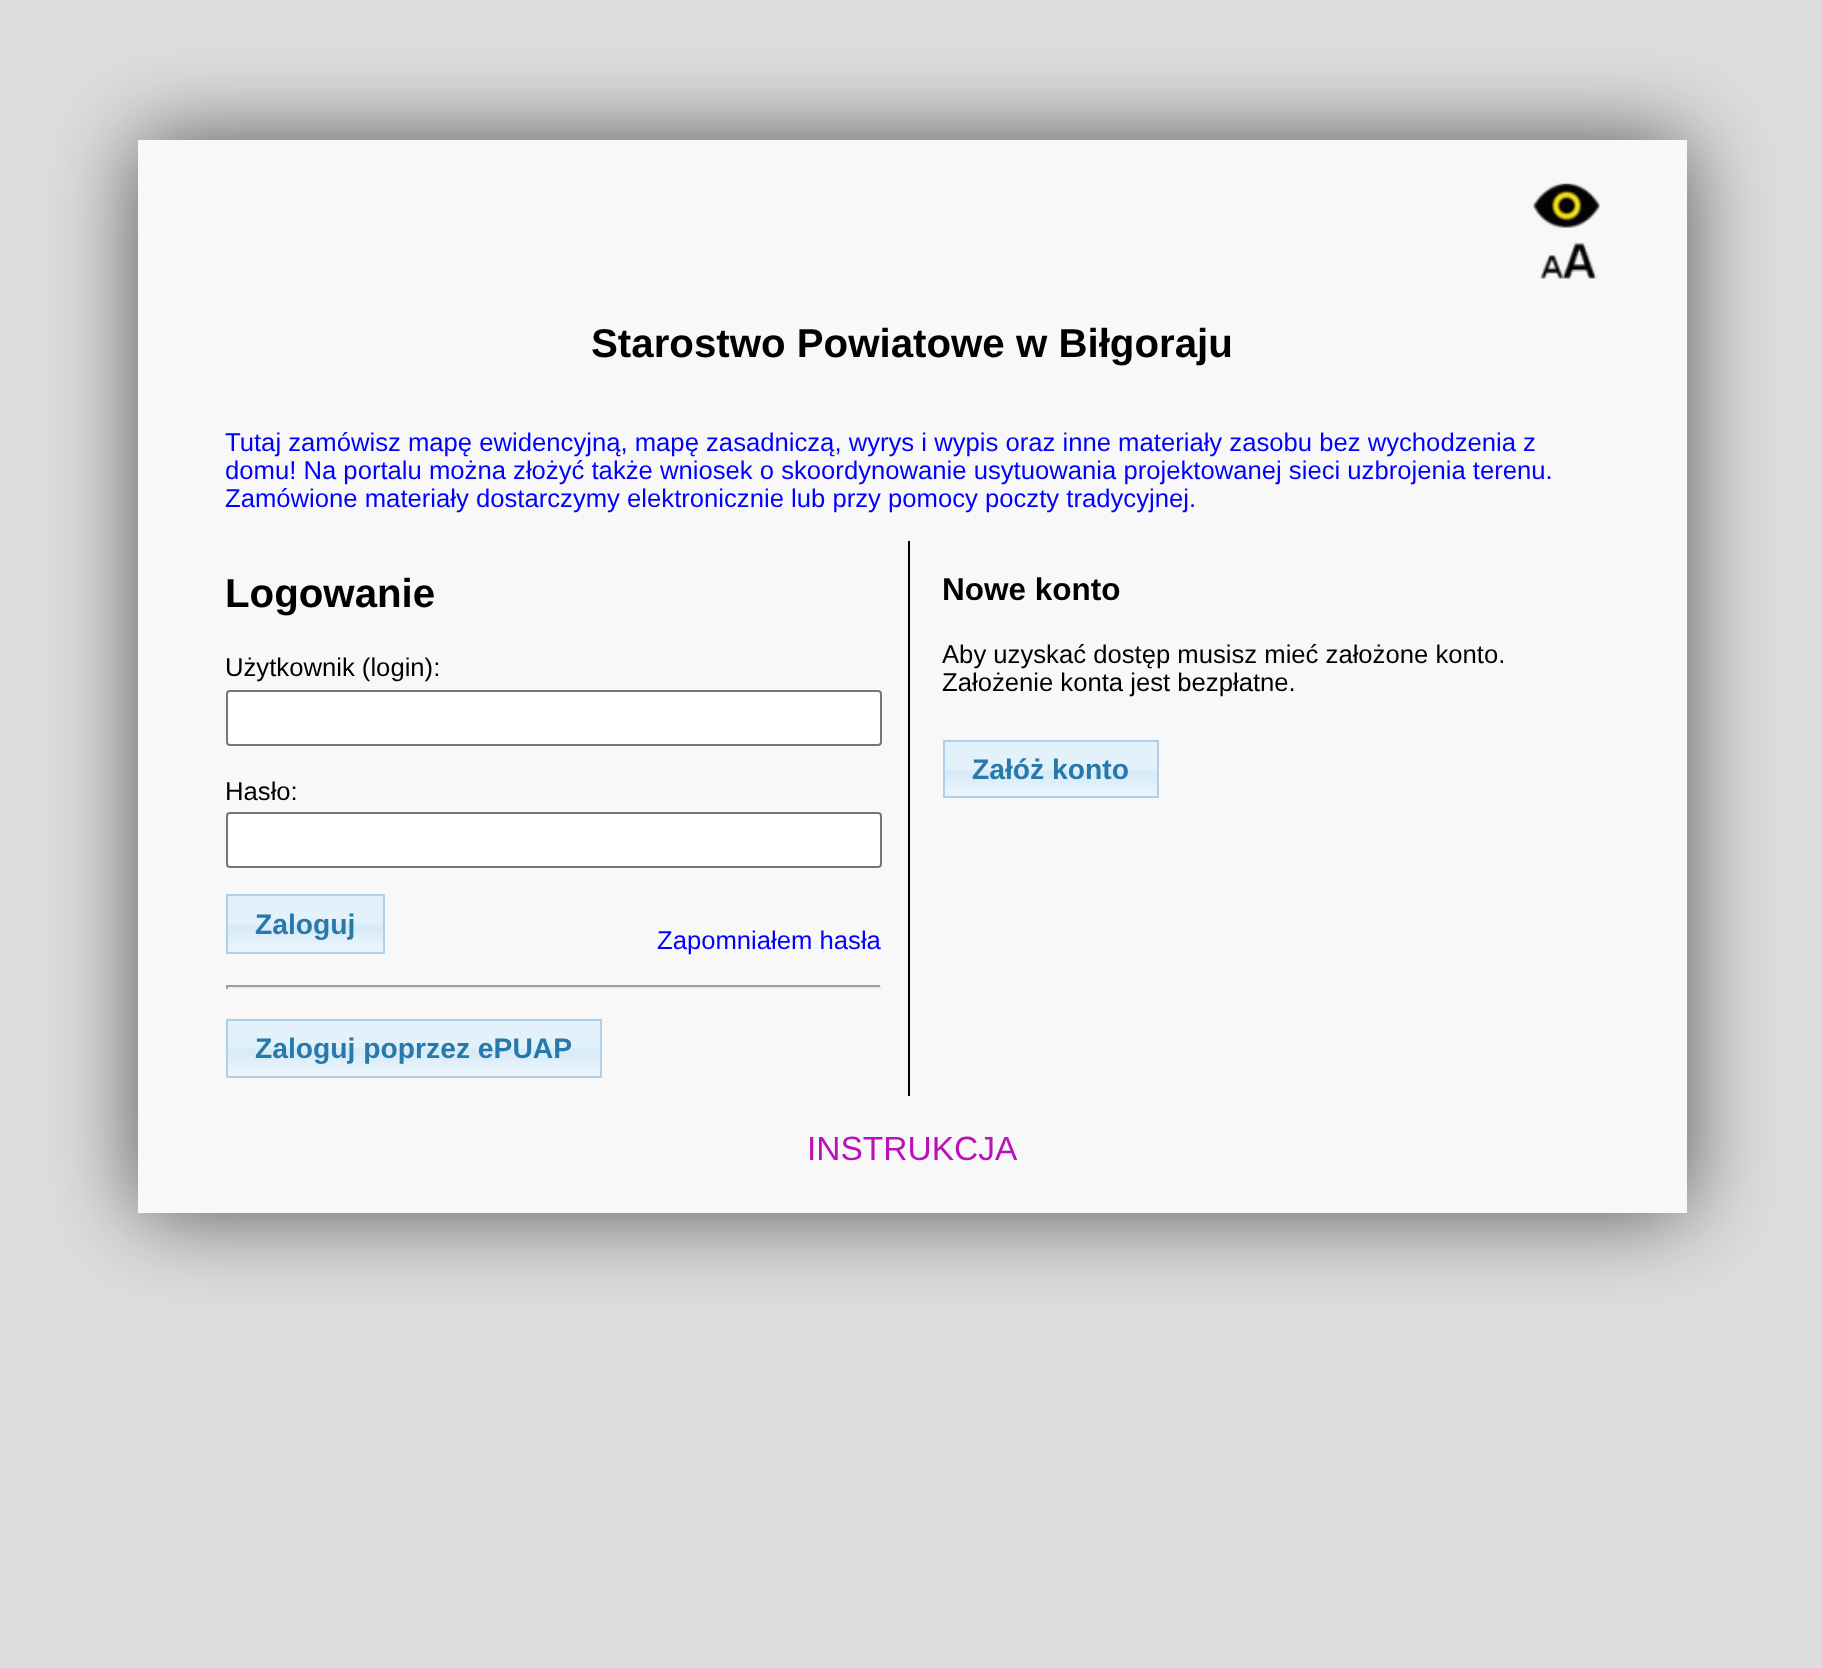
<svg xmlns="http://www.w3.org/2000/svg" width="1822" height="1668">
<style>
.a{font:bold 40.25px Liberation Sans;fill:#000}
.b{font:25.67px Liberation Sans;fill:#00f}
.c{font:25.67px Liberation Sans;fill:#000}
.d{font:bold 28.25px Liberation Sans;fill:#2779aa}
.e{font:bold 31.5px Liberation Sans;fill:#000}
.f{font:33.5px Liberation Sans;fill:#b1b}
</style>
<rect width="100%" height="100%" fill="#ddd"/>
<path fill="#0000009e" filter="blur(44px)" d="M138 140h1549v1073H138z"/>
<path fill="#f8f8f8" d="M138 140h1549v1073H138z"/>
<image href="1.png" x="1533" y="183" width="67" height="45"/>
<image href="2.png" x="1539" y="242" width="58" height="37"/>
<path fill="#000" d="M908 541h2v555H908z"/>
<rect fill="#fff" stroke="#767676" stroke-width="2" x="227" y="691" width="654" height="54" rx="3"/>
<rect fill="#fff" stroke="#767676" stroke-width="2" x="227" y="813" width="654" height="54" rx="3"/>
<image href="3.png" x="225" y="894" width="158" height="60"/>
<path fill="none" stroke="#aed0ea" stroke-width="2" d="M227 895h157v58H227z"/>
<path fill="#9f9f9f" d="M226 985h656v2H226z"/>
<path fill="#eee" d="M880 985h2v4H880z"/>
<path fill="#eee" d="M226 987h656v2H226z"/>
<path fill="#9f9f9f" d="M226 985h2v4H226z"/>
<image href="4.png" x="225" y="1018" width="377" height="60"/>
<path fill="none" stroke="#aed0ea" stroke-width="2" d="M227 1020h374v57H227z"/>
<image href="5.png" x="945" y="742" width="212" height="54"/>
<path fill="none" stroke="#aed0ea" stroke-width="2" d="M944 741h214v56H944z"/>
<text class="a" x="591" y="357">Starostwo Powiatowe w Biłgoraju</text>
<text class="b" x="225" y="451">Tutaj zamówisz mapę ewidencyjną, mapę zasadniczą, wyrys i wypis oraz inne materiały zasobu bez wychodzenia z</text>
<text class="b" x="225" y="479">domu! Na portalu można złożyć także wniosek o skoordynowanie usytuowania projektowanej sieci uzbrojenia terenu.</text>
<text class="b" x="225" y="507">Zamówione materiały dostarczymy elektronicznie lub przy pomocy poczty tradycyjnej.</text>
<text class="a" x="225" y="607">Logowanie</text>
<text class="c" x="225" y="676">Użytkownik (login):</text>
<text class="c" x="225" y="800">Hasło:</text>
<text class="d" x="255" y="934">Zaloguj</text>
<text class="b" x="657" y="949">Zapomniałem hasła</text>
<text class="d" x="255" y="1058">Zaloguj poprzez ePUAP</text>
<text class="e" x="942" y="600">Nowe konto</text>
<text class="c" x="942" y="663">Aby uzyskać dostęp musisz mieć założone konto.</text>
<text class="c" x="942" y="691">Założenie konta jest bezpłatne.</text>
<text class="d" x="972" y="779">Załóż konto</text>
<text class="f" x="807" y="1160">INSTRUKCJA</text>
</svg>
